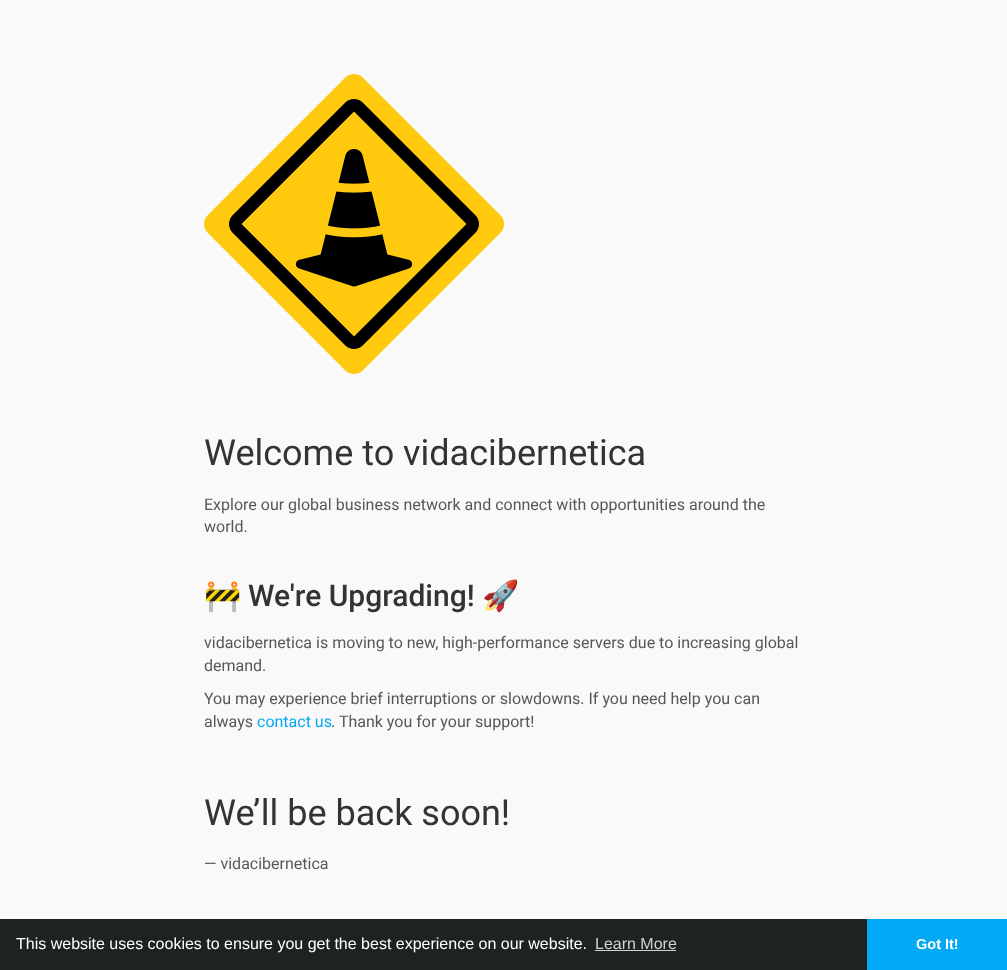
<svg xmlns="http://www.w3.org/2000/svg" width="1007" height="970">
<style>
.a{font:36px Roboto;fill:#333}
.b{font:16px Roboto;fill:#575757}
.c{font:30px Noto Color Emoji;fill:#333}
.d{font:500 30px Roboto;fill:#333}
.e{font:16px Roboto;fill:#03a9f4}
.f{font:16px Liberation Sans;fill:#fff}
.g{font:16px Liberation Sans;fill:#d2d3d3}
.h{font:bold 14.5px Liberation Sans;fill:#fff}
</style>
<rect width="100%" height="100%" fill="#f9f9f9"/>
<image href="1.png" x="204" y="74" width="300" height="300"/>
<path fill="#1e2321" d="M0 919h867v51H0z"/>
<path fill="#d2d3d3" d="M595 950h81v1H595z"/>
<path fill="#03a9f4" d="M867 919h140v51H867z"/>
<text class="a" x="204" y="465">Welcome to vidacibernetica</text>
<text class="b" x="204" y="510">Explore our global business network and connect with opportunities around the</text>
<text class="b" x="204" y="532">world.</text>
<text class="c" x="204" y="606">🚧</text>
<text class="d" x="248" y="606">We're Upgrading!</text>
<text class="c" x="482" y="606">🚀</text>
<text class="b" x="204" y="648">vidacibernetica is moving to new, high-performance servers due to increasing global</text>
<text class="b" x="204" y="671">demand.</text>
<text class="b" x="204" y="704">You may experience brief interruptions or slowdowns. If you need help you can</text>
<text class="b" x="204" y="727">always</text>
<text class="e" x="257" y="727">contact us</text>
<text class="b" x="331" y="727">. Thank you for your support!</text>
<text class="a" x="204" y="825">We’ll be back soon!</text>
<text class="b" x="204" y="869">— vidacibernetica</text>
<text class="f" x="16" y="949">This website uses cookies to ensure you get the best experience on our website.</text>
<text class="g" x="595" y="949">Learn More</text>
<text class="h" x="916" y="949">Got It!</text>
</svg>
